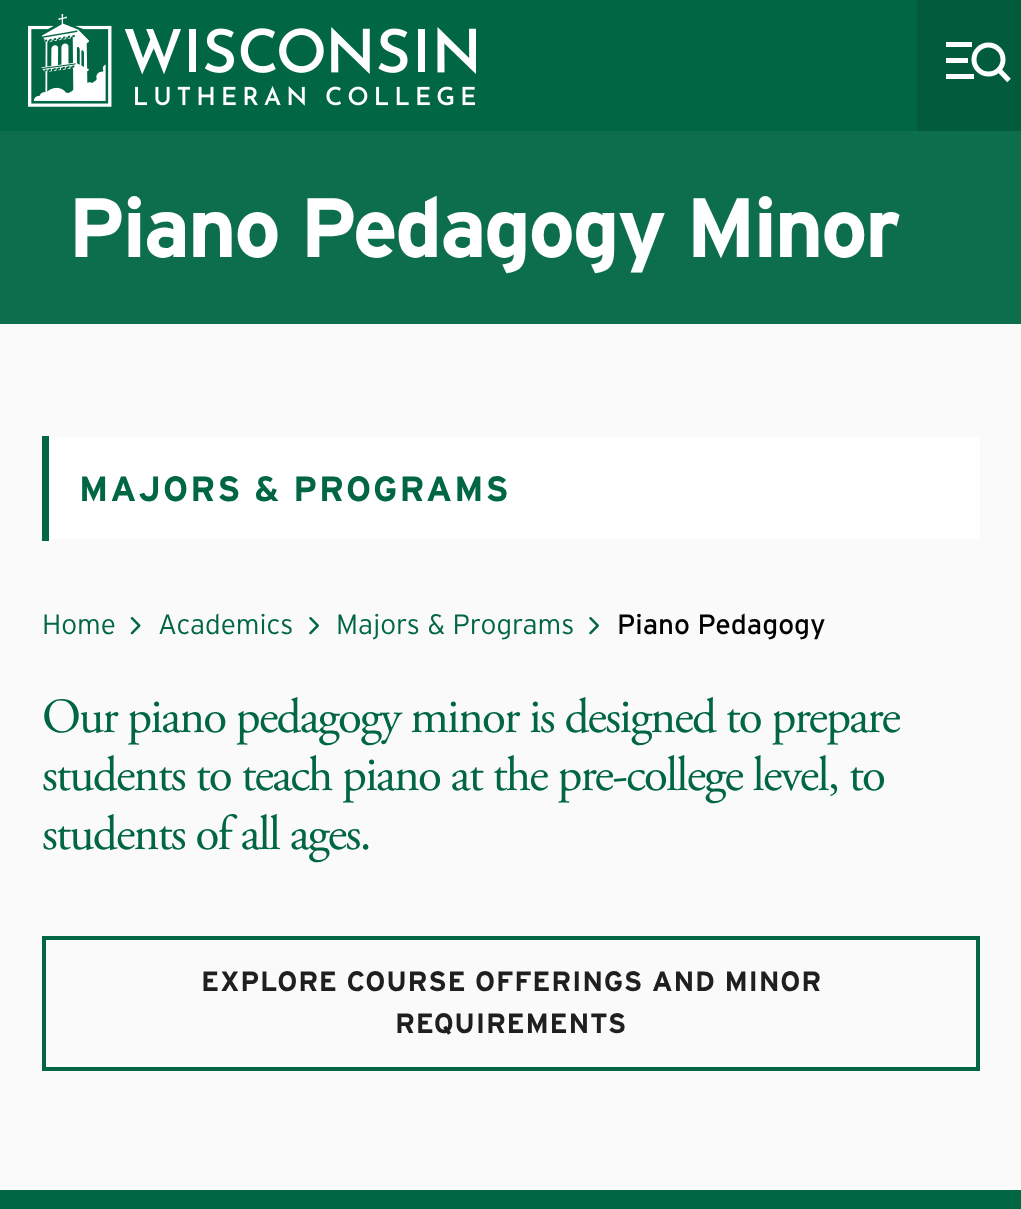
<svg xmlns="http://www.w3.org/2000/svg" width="1021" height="1209">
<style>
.a{font:bold 84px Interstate;letter-spacing:-2.6px;fill:#fff}
.b{font:bold 35px Interstate;letter-spacing:2px;fill:#006643}
.c{font:300 28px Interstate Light;fill:#006643}
.d{font:28px Interstate;fill:#000}
.e{font:49px Adobe Garamond;letter-spacing:-1.75px;fill:#006643}
.f{font:bold 28px Interstate;letter-spacing:0.7px;fill:#201f20}
</style>
<rect width="100%" height="100%" fill="#fafafa"/>
<path fill="#016643" d="M0 0h917v131H0z"/>
<image href="1.png" x="28" y="14" width="448" height="93"/>
<path fill="#035b3d" d="M917 0h104v131H917z"/>
<circle fill="none" stroke="#fff" stroke-width="5" cx="988.5" cy="59.5" r="14.5"/>
<path fill="#fff" d="M946 42h26v5H946z"/>
<path fill="#fff" d="M946 58h22v5H946z"/>
<path fill="#fff" d="M946 74h28v5H946z"/>
<path fill="none" stroke="#fff" stroke-width="5" d="M999 70l10 10.5"/>
<path fill="#0d6e4d" d="M0 131h1021v193H0z"/>
<path fill="#006643" d="M42 436h7v105H42z"/>
<path fill="#fff" d="M49 438h931v101H49z"/>
<image href="2.png" x="130" y="617" width="11" height="18"/>
<image href="3.png" x="309" y="617" width="10" height="18"/>
<image href="3.png" x="589" y="617" width="10" height="18"/>
<path fill="none" stroke="#006643" stroke-width="4" d="M44 938h934v131H44z"/>
<path fill="#006643" d="M0 1190h1021v19H0z"/>
<text class="a" x="68" y="257">Piano Pedagogy Minor</text>
<text class="b" x="79" y="501">MAJORS &amp; PROGRAMS</text>
<text class="c" x="42" y="634">Home</text>
<text class="c" x="158" y="634">Academics</text>
<text class="c" x="336" y="634">Majors &amp; Programs</text>
<text class="d" x="617" y="634">Piano Pedagogy</text>
<text class="e" x="42" y="732">Our piano pedagogy minor is designed to prepare</text>
<text class="e" x="42" y="790">students to teach piano at the pre-college level, to</text>
<text class="e" x="42" y="849">students of all ages.</text>
<text class="f" x="201" y="991">EXPLORE COURSE OFFERINGS AND MINOR</text>
<text class="f" x="395" y="1033">REQUIREMENTS</text>
</svg>
